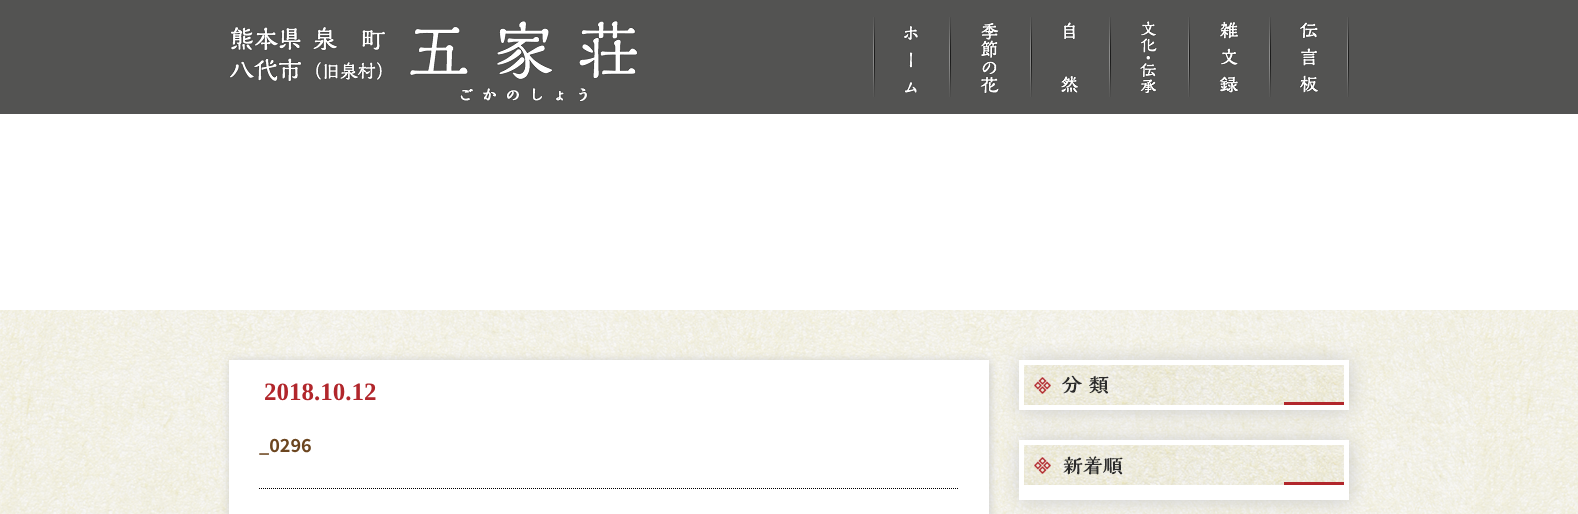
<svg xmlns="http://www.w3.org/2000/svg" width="1578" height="514">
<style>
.a{font:bold 25px Liberation Serif;fill:#b1262b}
.b{font:bold 18px Noto Sans JP;fill:#6c4620}
</style>
<rect width="100%" height="100%" fill="#fff"/>
<path fill="#535352" d="M0 0h1578v114H0z"/>
<image href="1.png" x="229" y="20" width="409" height="82"/>
<image href="2.png" x="873" y="17" width="2" height="80"/>
<image href="3.png" x="903" y="25" width="16" height="68"/>
<image href="2.png" x="949" y="17" width="2" height="80"/>
<image href="4.png" x="980" y="22" width="19" height="72"/>
<image href="2.png" x="1030" y="17" width="2" height="80"/>
<image href="5.png" x="1061" y="22" width="18" height="71"/>
<image href="2.png" x="1109" y="17" width="2" height="80"/>
<image href="6.png" x="1140" y="21" width="17" height="73"/>
<image href="2.png" x="1188" y="17" width="2" height="80"/>
<image href="7.png" x="1219" y="21" width="20" height="72"/>
<image href="8.png" x="1269" y="17" width="80" height="80"/>
<image href="9.png" x="1299" y="22" width="20" height="71"/>
<image href="10.png" x="0" y="310" width="1578" height="204"/>
<path fill="#ccc" filter="blur(5px)" d="M230 361h760v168H230z"/>
<path fill="#fff" d="M229 360h760v154H229z"/>
<path fill="none" stroke="#000" stroke-dasharray="1 1" d="M259 488.5h700"/>
<path fill="#ccc" filter="blur(10px)" d="M1020 361h330v50H1020z"/>
<path fill="#fff" d="M1019 360h330v50H1019z"/>
<image href="11.png" x="1024" y="365" width="320" height="40"/>
<path fill="#ccc" filter="blur(10px)" d="M1020 441h330v60H1020z"/>
<path fill="#fff" d="M1019 440h330v60H1019z"/>
<image href="12.png" x="1024" y="445" width="320" height="40"/>
<text class="a" x="264" y="400">2018.10.12</text>
<text class="b" x="259" y="452">_0296</text>
</svg>
